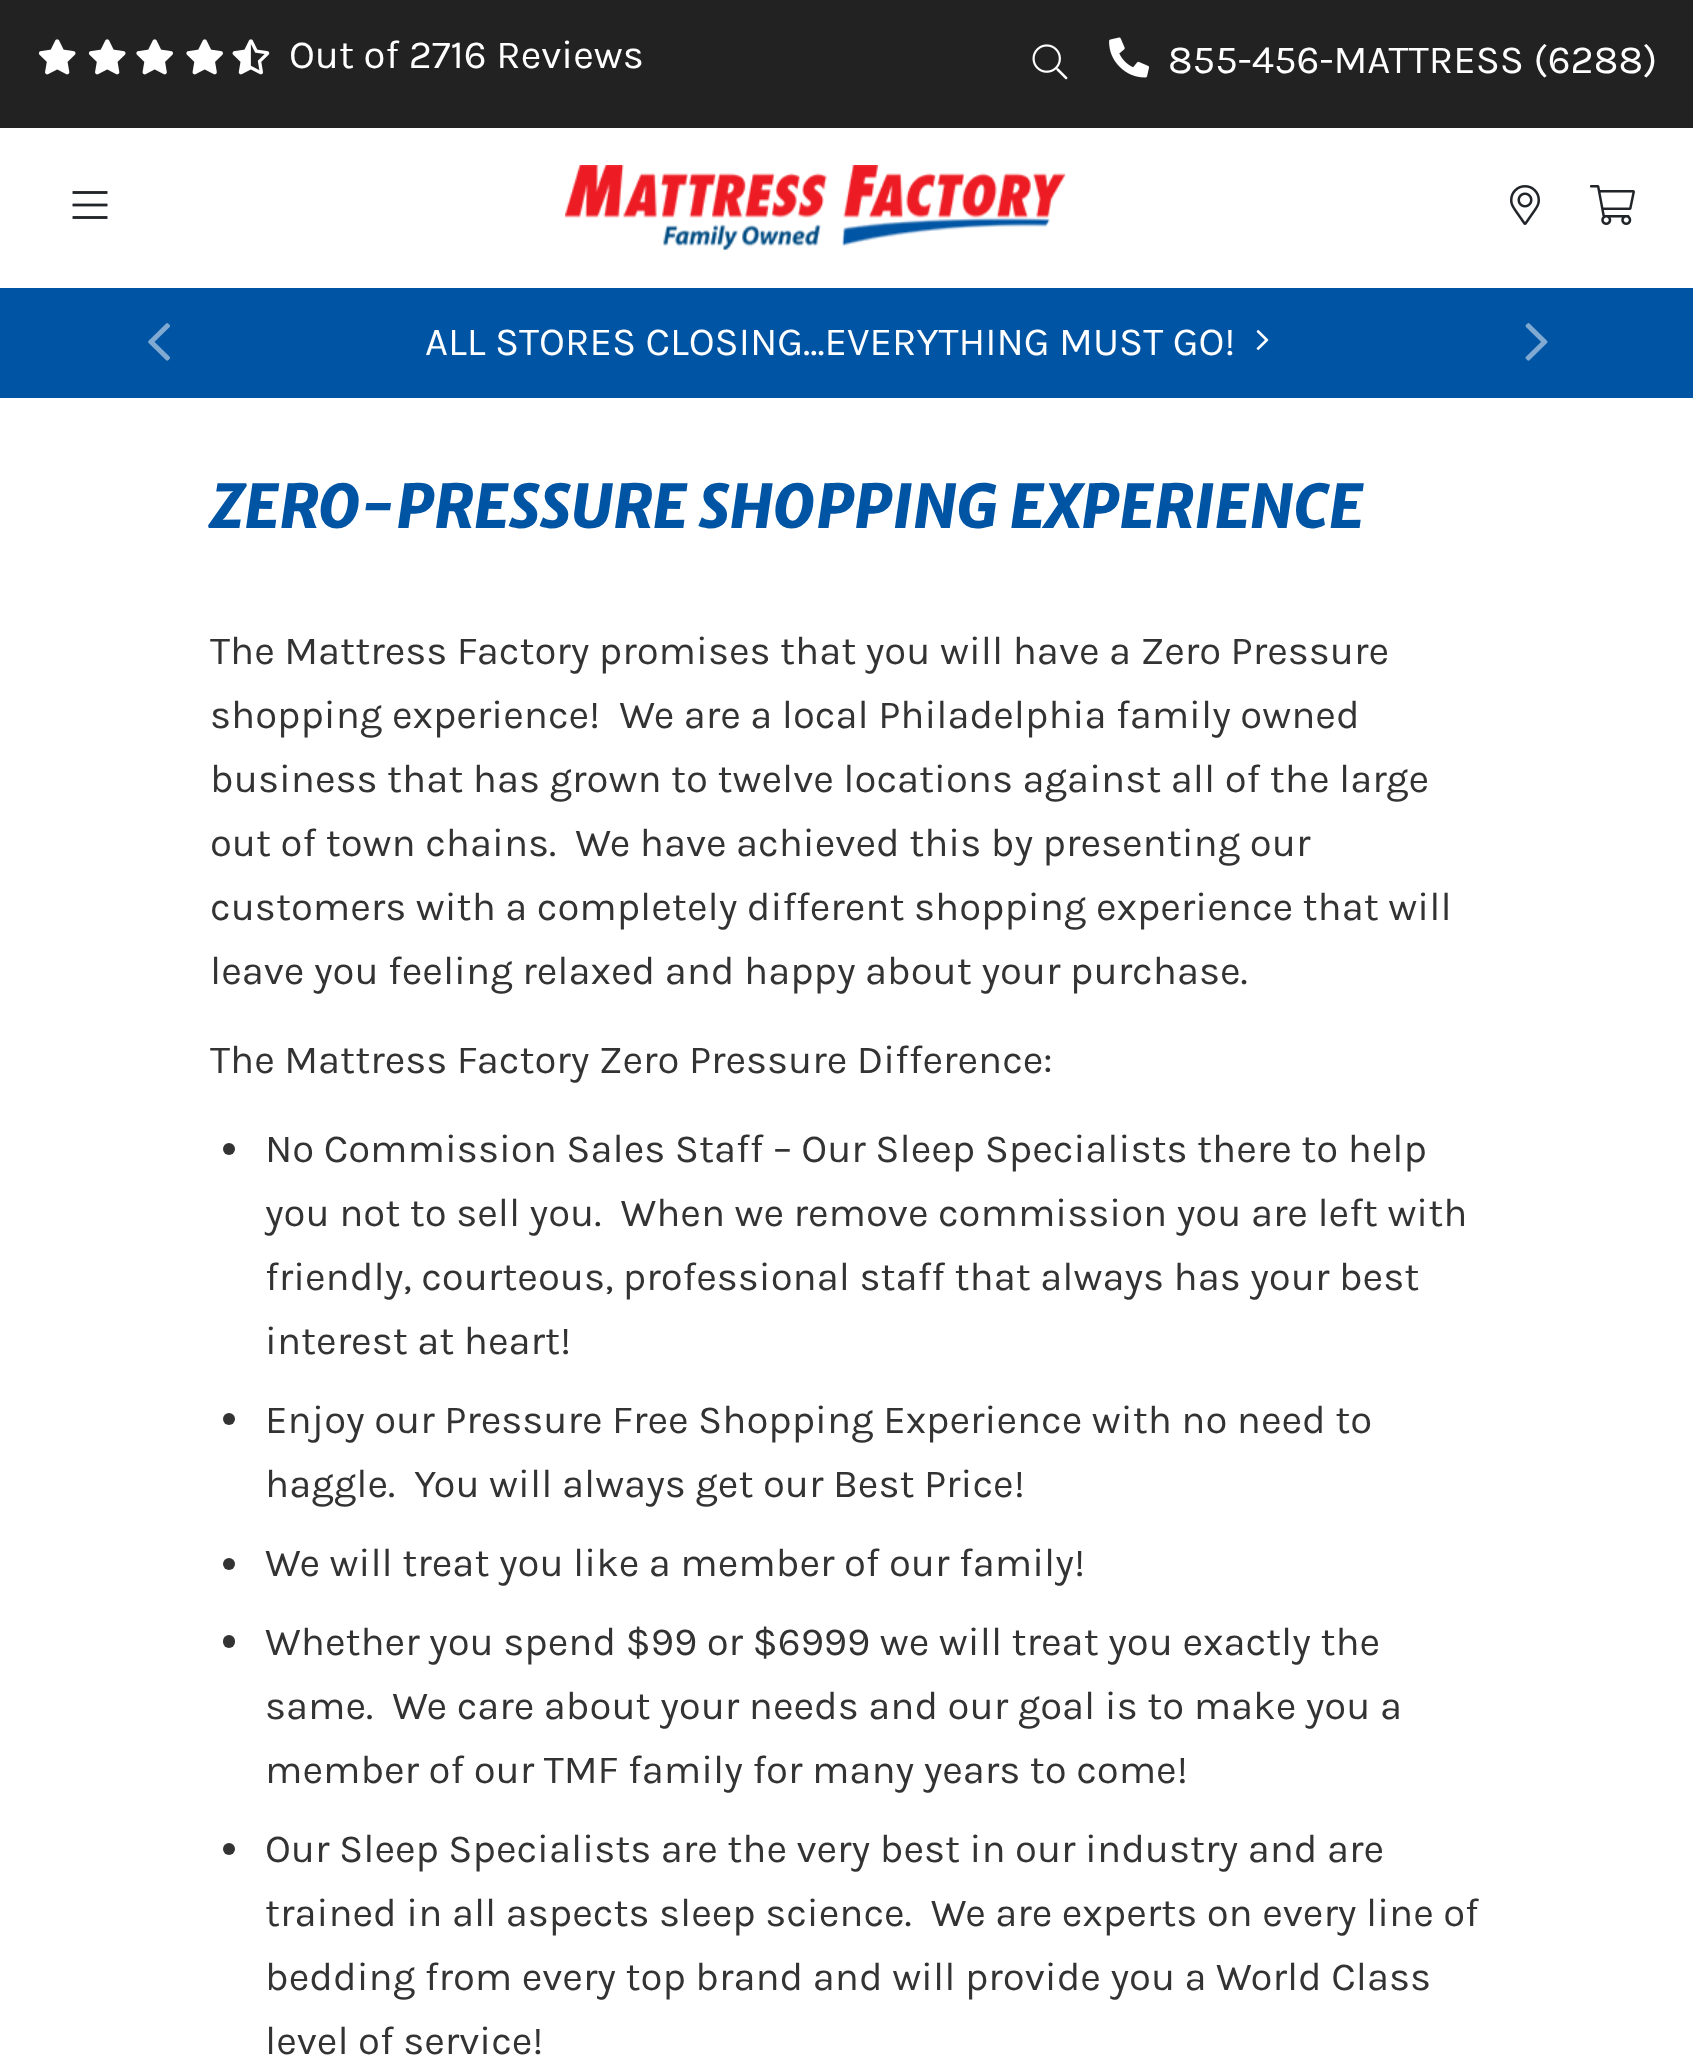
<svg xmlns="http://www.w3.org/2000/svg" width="1693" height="2068">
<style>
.a{font:40px Karla;fill:#fff}
.b{font:italic 800 60px Merriweather Sans;fill:#0054a4}
.c{font:40px Karla;fill:#333}
</style>
<rect width="100%" height="100%" fill="#fff"/>
<path fill="#222" d="M0 0h1693v128H0z"/>
<image href="1.png" x="38" y="39" width="38" height="36"/>
<image href="1.png" x="88" y="39" width="38" height="36"/>
<image href="2.png" x="136" y="39" width="37" height="36"/>
<image href="2.png" x="186" y="39" width="37" height="36"/>
<image href="3.png" x="232" y="39" width="38" height="36"/>
<image href="4.png" x="1032" y="44" width="36" height="36"/>
<image href="5.png" x="1109" y="37" width="40" height="41"/>
<image href="6.png" x="72" y="191" width="36" height="28"/>
<image href="7.png" x="565" y="165" width="501" height="85"/>
<image href="8.png" x="1510" y="185" width="30" height="40"/>
<image href="9.png" x="1590" y="185" width="45" height="40"/>
<path fill="#0054a4" d="M0 288h1693v110H0z"/>
<image href="10.png" x="148" y="323" width="22" height="38"/>
<image href="11.png" x="1256" y="330" width="13" height="20"/>
<image href="12.png" x="1525" y="323" width="23" height="38"/>
<circle fill="#333" cx="229" cy="1149" r="6"/>
<circle fill="#333" cx="229" cy="1419" r="6"/>
<circle fill="#333" cx="229" cy="1564" r="6"/>
<rect fill="#333" x="223" y="1635" width="12" height="13" rx="6"/>
<circle fill="#333" cx="229" cy="1849" r="6"/>
<text class="a" x="289" y="68">Out of 2716 Reviews</text>
<text class="a" x="1168" y="73">855-456-MATTRESS (6288)</text>
<text class="a" x="425" y="355">ALL STORES CLOSING...EVERYTHING MUST GO!</text>
<text class="b" x="210" y="528">ZERO-PRESSURE SHOPPING EXPERIENCE</text>
<text class="c" x="210" y="664">The Mattress Factory promises that you will have a Zero Pressure</text>
<text class="c" xml:space="preserve" x="210" y="728">shopping experience!  We are a local Philadelphia family owned</text>
<text class="c" x="210" y="792">business that has grown to twelve locations against all of the large</text>
<text class="c" xml:space="preserve" x="210" y="856">out of town chains.  We have achieved this by presenting our</text>
<text class="c" x="210" y="920">customers with a completely different shopping experience that will</text>
<text class="c" x="210" y="984">leave you feeling relaxed and happy about your purchase.</text>
<text class="c" x="210" y="1073">The Mattress Factory Zero Pressure Difference:</text>
<text class="c" x="265" y="1162">No Commission Sales Staff – Our Sleep Specialists there to help</text>
<text class="c" xml:space="preserve" x="265" y="1226">you not to sell you.  When we remove commission you are left with</text>
<text class="c" x="265" y="1290">friendly, courteous, professional staff that always has your best</text>
<text class="c" x="265" y="1354">interest at heart!</text>
<text class="c" x="265" y="1433">Enjoy our Pressure Free Shopping Experience with no need to</text>
<text class="c" xml:space="preserve" x="265" y="1497">haggle.  You will always get our Best Price!</text>
<text class="c" x="265" y="1576">We will treat you like a member of our family!</text>
<text class="c" x="265" y="1655">Whether you spend $99 or $6999 we will treat you exactly the</text>
<text class="c" xml:space="preserve" x="265" y="1719">same.  We care about your needs and our goal is to make you a</text>
<text class="c" x="265" y="1783">member of our TMF family for many years to come!</text>
<text class="c" x="265" y="1862">Our Sleep Specialists are the very best in our industry and are</text>
<text class="c" xml:space="preserve" x="265" y="1926">trained in all aspects sleep science.  We are experts on every line of</text>
<text class="c" x="265" y="1990">bedding from every top brand and will provide you a World Class</text>
<text class="c" x="265" y="2054">level of service!</text>
</svg>
